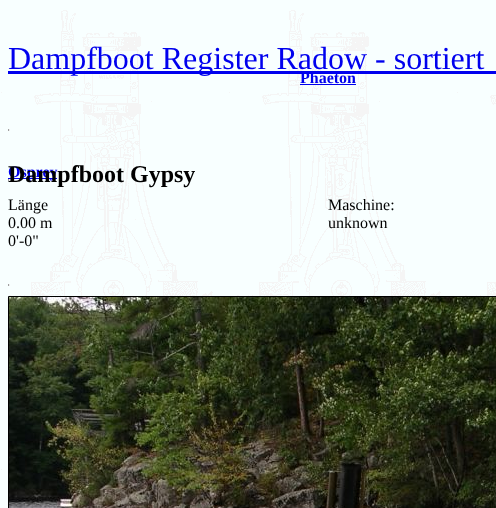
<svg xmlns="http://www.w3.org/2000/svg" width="496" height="508">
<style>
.a{font:32px Liberation Serif;fill:#00e}
.b{font:bold 16px Liberation Serif;fill:#00e}
.c{font:bold 24px Liberation Serif;fill:#000}
.d{font:16px Liberation Serif;fill:#000}
</style>
<rect width="100%" height="100%" fill="#fff"/>
<image href="1.png" x="0" y="0" width="496" height="508"/>
<path fill="#00e" d="M8 71h488v3H8z"/>
<path fill="#00e" d="M300 84h56v1H300z"/>
<path fill="#00e" d="M8 178h49v1H8z"/>
<path fill="#eee" d="M9 129h1v2H9z"/>
<path fill="#eee" d="M8 130h2v1H8z"/>
<path fill="#9f9f9f" d="M8 129h1v2H8z"/>
<path fill="#eee" d="M9 284h1v2H9z"/>
<path fill="#eee" d="M8 285h2v1H8z"/>
<path fill="#9f9f9f" d="M8 284h1v2H8z"/>
<path fill="none" stroke="#000" d="M8.5 296.5h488v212H8.5z"/>
<image href="2.png" x="9" y="297" width="487" height="211"/>
<text class="a" x="8" y="69">Dampfboot Register Radow - sortiert</text>
<text class="b" x="300" y="83">Phaeton</text>
<text class="b" x="8" y="177">Osprey</text>
<text class="c" x="8" y="182">Dampfboot Gypsy</text>
<path fill="#eee" d="M9 179h1v2H9z"/>
<path fill="#eee" d="M8 180h2v1H8z"/>
<path fill="#9f9f9f" d="M8 179h1v2H8z"/>
<text class="d" x="8" y="210">Länge</text>
<text class="d" x="8" y="228">0.00 m</text>
<text class="d" x="8" y="246">0'-0"</text>
<text class="d" x="328" y="210">Maschine:</text>
<text class="d" x="328" y="228">unknown</text>
</svg>
